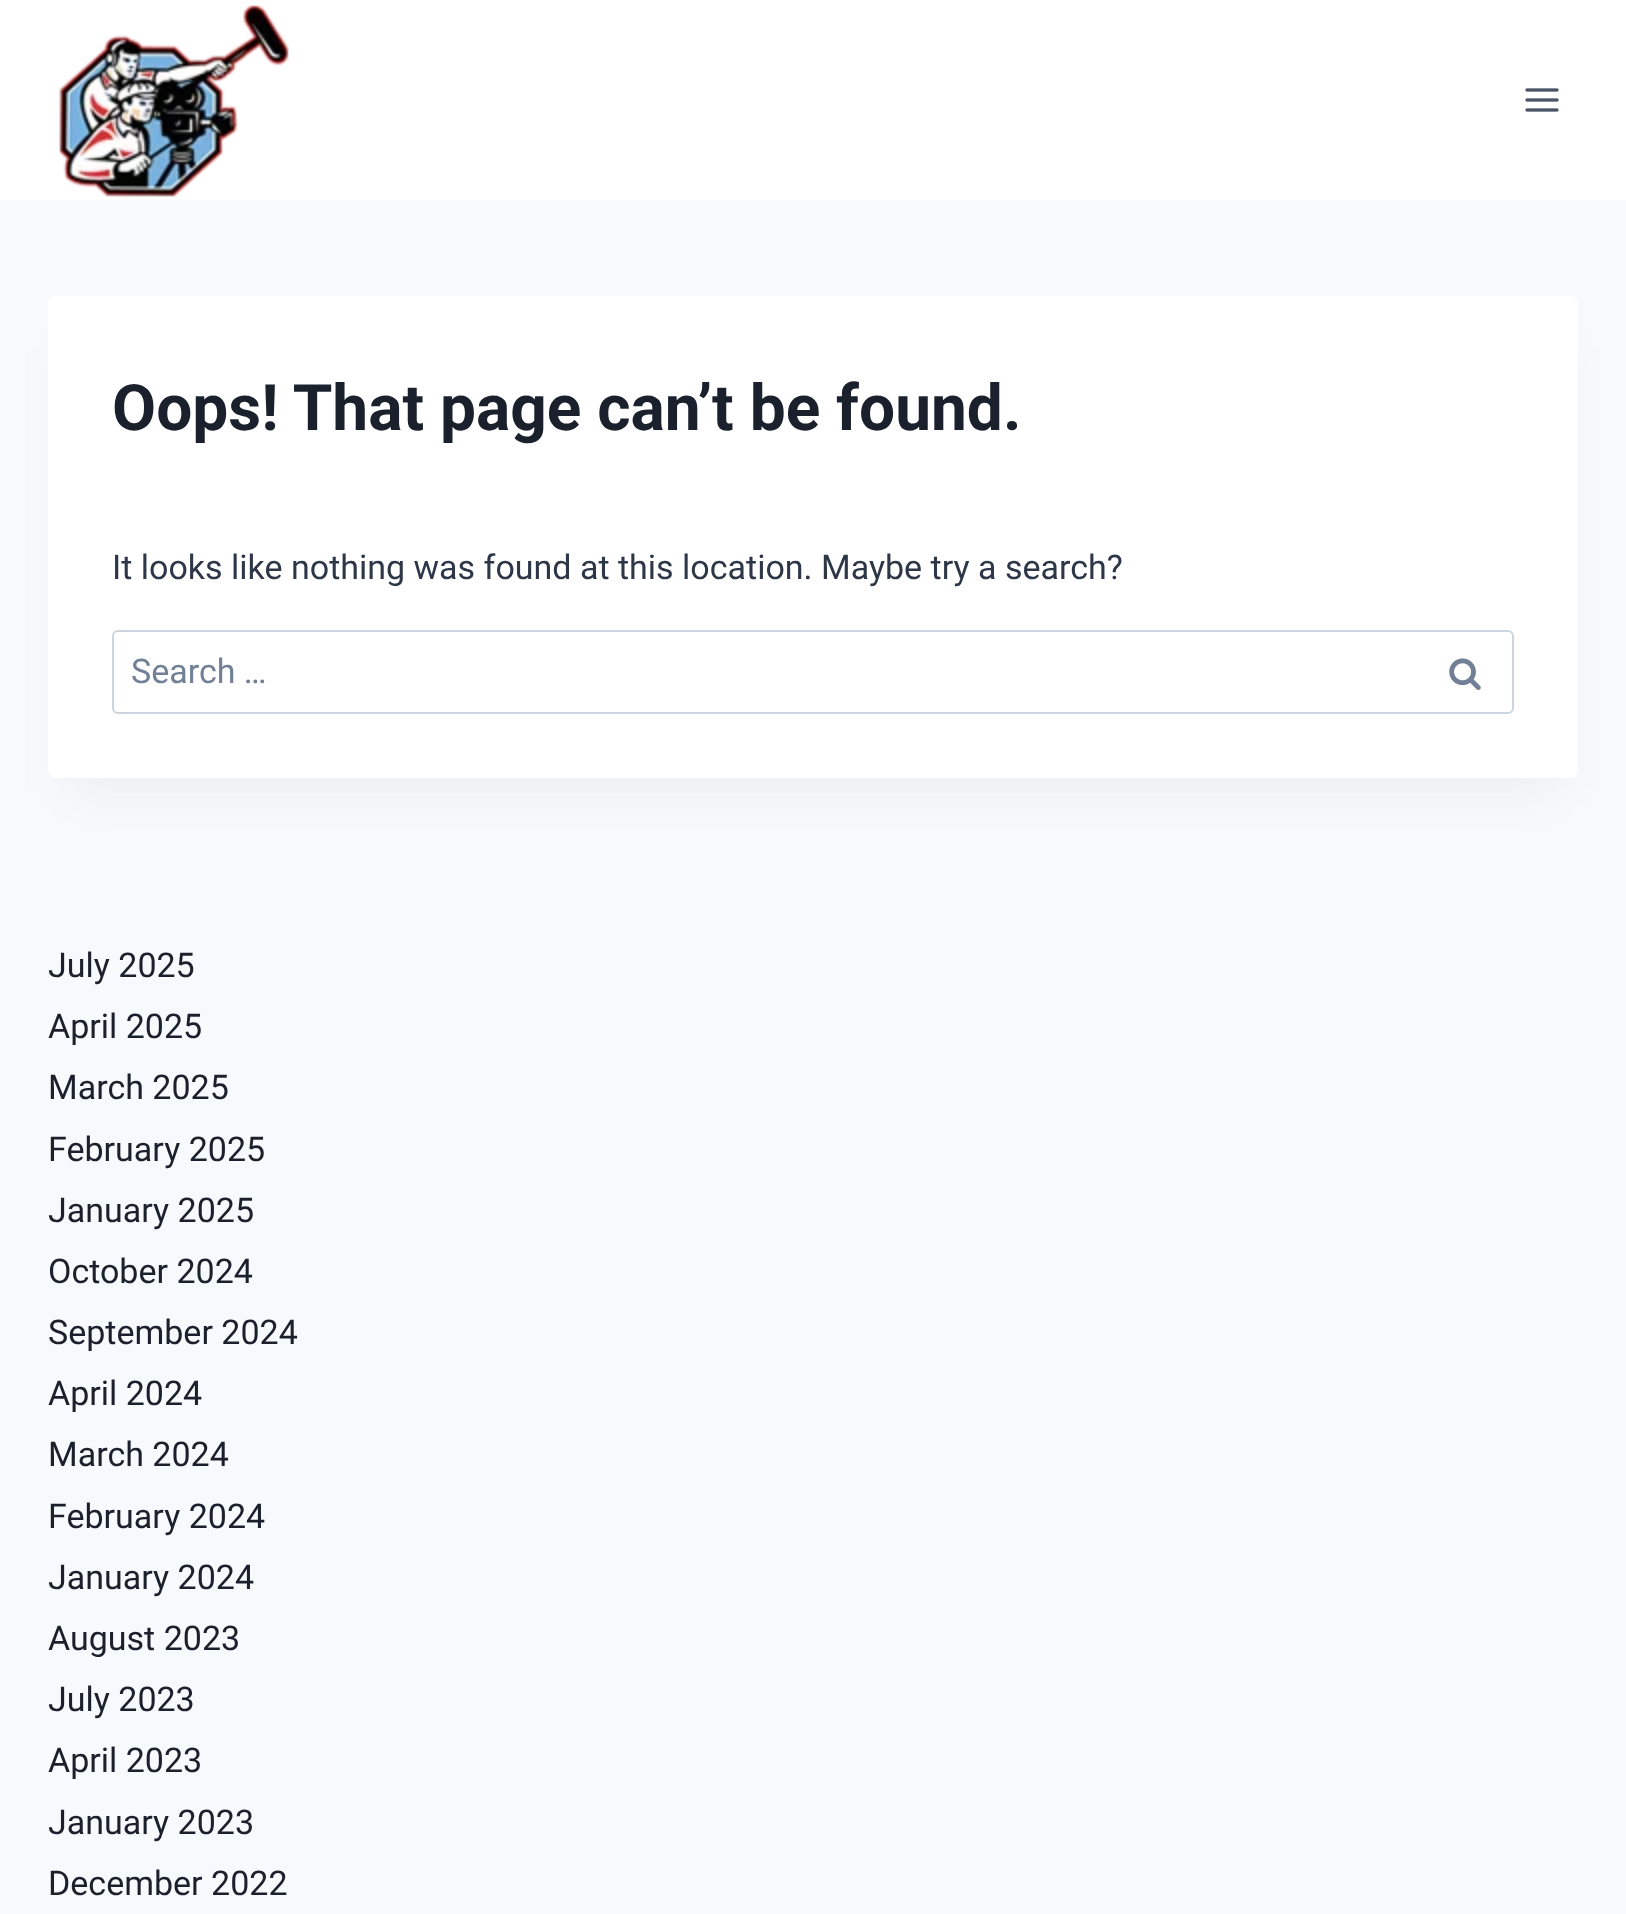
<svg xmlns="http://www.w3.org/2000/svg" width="1626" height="1914">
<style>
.a{font:bold 64px Roboto;fill:#1a202c}
.b{font:34px Roboto;fill:#2d3748}
.c{font:34px Roboto;fill:#718096}
.d{font:34px Roboto;fill:#1a202c}
</style>
<rect width="100%" height="100%" fill="#f7fafc"/>
<path fill="#fff" d="M0 0h1626v200H0z"/>
<image href="1.png" x="59" y="5" width="230" height="192"/>
<image href="2.png" x="1525" y="88" width="34" height="24"/>
<path fill="#0000000d" filter="blur(25px)" d="M68 346h1490v442H68z"/>
<rect fill="#fff" x="48" y="296" width="1530" height="482" rx="8"/>
<rect fill="none" stroke="#cbd5e0" stroke-width="2" x="113" y="631" width="1400" height="82" rx="5"/>
<image href="3.png" x="1449" y="658" width="32" height="32"/>
<text class="a" x="112" y="430">Oops! That page can’t be found.</text>
<text class="b" x="112" y="579">It looks like nothing was found at this location. Maybe try a search?</text>
<text class="c" x="131" y="683">Search …</text>
<text class="d" x="48" y="977">July 2025</text>
<text class="d" x="48" y="1038">April 2025</text>
<text class="d" x="48" y="1099">March 2025</text>
<text class="d" x="48" y="1161">February 2025</text>
<text class="d" x="48" y="1222">January 2025</text>
<text class="d" x="48" y="1283">October 2024</text>
<text class="d" x="48" y="1344">September 2024</text>
<text class="d" x="48" y="1405">April 2024</text>
<text class="d" x="48" y="1466">March 2024</text>
<text class="d" x="48" y="1528">February 2024</text>
<text class="d" x="48" y="1589">January 2024</text>
<text class="d" x="48" y="1650">August 2023</text>
<text class="d" x="48" y="1711">July 2023</text>
<text class="d" x="48" y="1772">April 2023</text>
<text class="d" x="48" y="1834">January 2023</text>
<text class="d" x="48" y="1895">December 2022</text>
</svg>
